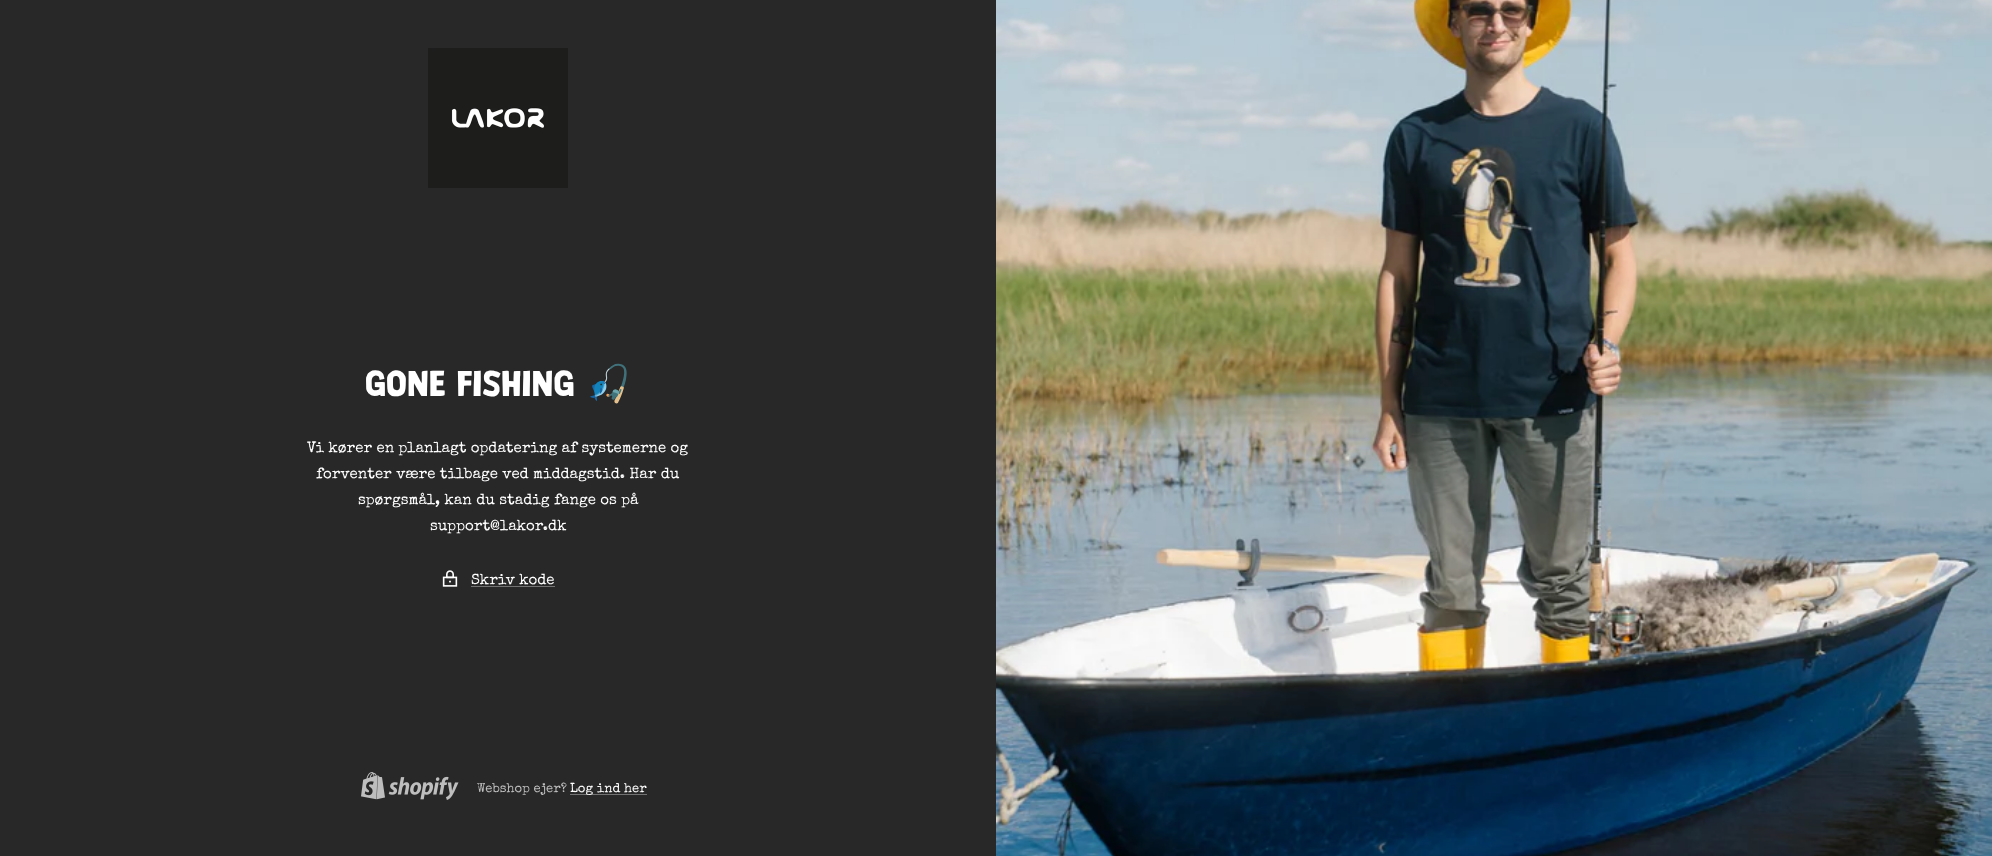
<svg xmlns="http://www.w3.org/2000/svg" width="1992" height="856">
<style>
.a{font:36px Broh;fill:#fff}
.b{font:36px Noto Color Emoji;fill:#fff}
.c{font:15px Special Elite;fill:#fff}
.d{font:13px Special Elite;fill:#bfbfbf}
.e{font:13px Special Elite;fill:#fff}
</style>
<rect width="100%" height="100%" fill="#282828"/>
<image href="1.png" x="428" y="48" width="140" height="140"/>
<image href="2.png" x="442" y="570" width="16" height="17"/>
<path fill="#737373" d="M471 586h84v1H471z"/>
<image href="3.png" x="361" y="772" width="98" height="28"/>
<path fill="#737373" d="M570 794h77v1H570z"/>
<image href="4.png" x="996" y="0" width="996" height="856"/>
<text class="a" x="365" y="396">GONE FISHING</text>
<text class="b" x="586" y="396">🎣</text>
<text class="c" x="307" y="452">Vi kører en planlagt opdatering af systemerne og</text>
<text class="c" x="316" y="478">forventer være tilbage ved middagstid. Har du</text>
<text class="c" x="358" y="504">spørgsmål, kan du stadig fange os på</text>
<text class="c" x="430" y="530">support@lakor.dk</text>
<text class="c" x="471" y="584">Skriv kode</text>
<text class="d" x="477" y="792">Webshop ejer?</text>
<text class="e" x="570" y="792">Log ind her</text>
</svg>
